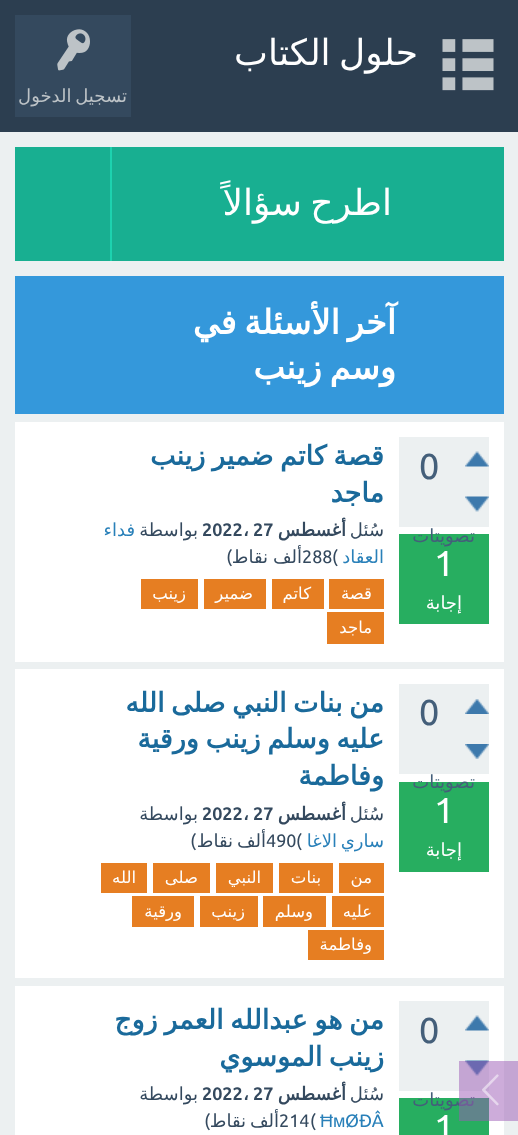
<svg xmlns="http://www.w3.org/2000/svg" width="518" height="1135">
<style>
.a{font:36px DejaVu Sans;direction:rtl;fill:#fff}
.b{font:18px DejaVu Sans;direction:rtl;fill:#bdc3c7}
.c{font:bold 33.5px DejaVu Sans;direction:rtl;fill:#fff}
.d{font:36px Ubuntu;fill:#445f7a}
.e{font:18px DejaVu Sans;direction:rtl;fill:#445f7a}
.f{font:36px Ubuntu;fill:#fff}
.g{font:18px DejaVu Sans;direction:rtl;fill:#fff}
.h{font:bold 27px DejaVu Sans;direction:rtl;fill:#1a6a9b}
.i{font:18px DejaVu Sans;direction:rtl;fill:#34495e}
.j{font:bold 18px DejaVu Sans;direction:rtl;fill:#34495e}
.k{font:bold 18px Ubuntu;fill:#34495e}
.l{font:bold 18px DejaVu Sans;fill:#34495e}
.m{font:18px DejaVu Sans;direction:rtl;fill:#2980b9}
.n{font:18px Ubuntu;fill:#34495e}
.o{font:18px Ubuntu;direction:rtl;fill:#34495e}
.p{font:16.5px DejaVu Sans;direction:rtl;fill:#fff}
.q{font:18px Ubuntu;fill:#2980b9}
.r{font:18px Liberation Sans;fill:#2980b9}
</style>
<rect width="100%" height="100%" fill="#ecf0f1"/>
<path fill="#2c3e50" d="M0 0h518v132H0z"/>
<image href="1.png" x="442" y="39" width="52" height="52"/>
<path fill="#34495e" d="M15 15h116v102H15z"/>
<image href="2.png" x="57" y="29" width="33" height="42"/>
<path fill="#18af91" d="M112 147h392v114H112z"/>
<path fill="#18af91" d="M15 147h95v114H15z"/>
<path fill="#1dd2af" d="M110 147h2v114H110z"/>
<path fill="#3498db" d="M15 276h489v138H15z"/>
<path fill="#fff" d="M15 422h489v240H15z"/>
<path fill="#ecf0f1" d="M399 437h90v90H399z"/>
<image href="4.png" x="465" y="451" width="24" height="16"/>
<image href="5.png" x="465" y="496" width="24" height="16"/>
<path fill="#27ae60" d="M399 534h90v90H399z"/>
<path fill="#e67e22" d="M329 579h55v30H329z"/>
<path fill="#e67e22" d="M272 579h52v30H272z"/>
<path fill="#e67e22" d="M204 579h62v30H204z"/>
<path fill="#e67e22" d="M141 579h57v30H141z"/>
<path fill="#e67e22" d="M327 612h57v32H327z"/>
<path fill="#fff" d="M15 669h489v309H15z"/>
<path fill="#ecf0f1" d="M399 684h90v90H399z"/>
<image href="6.png" x="465" y="699" width="24" height="15"/>
<image href="7.png" x="465" y="744" width="24" height="15"/>
<path fill="#27ae60" d="M399 782h90v90H399z"/>
<path fill="#e67e22" d="M339 863h45v30H339z"/>
<path fill="#e67e22" d="M279 863h54v30H279z"/>
<path fill="#e67e22" d="M216 863h57v30H216z"/>
<path fill="#e67e22" d="M153 863h57v30H153z"/>
<path fill="#e67e22" d="M101 863h46v30H101z"/>
<path fill="#e67e22" d="M332 896h52v31H332z"/>
<path fill="#e67e22" d="M263 896h63v31H263z"/>
<path fill="#e67e22" d="M200 896h58v31H200z"/>
<path fill="#e67e22" d="M132 896h62v31H132z"/>
<path fill="#e67e22" d="M308 930h76v30H308z"/>
<path fill="#fff" d="M15 986h489v149H15z"/>
<path fill="#ecf0f1" d="M399 1001h90v90H399z"/>
<image href="4.png" x="465" y="1015" width="24" height="16"/>
<image href="5.png" x="465" y="1060" width="24" height="16"/>
<path fill="#27ae60" d="M399 1098h90v37H399z"/>
<text class="a" x="418" y="65" word-spacing="-3">حلول الكتاب</text>
<text class="b" x="127" y="102" word-spacing="-2">تسجيل الدخول</text>
<text class="a" x="392" y="215" word-spacing="-3">اطرح سؤالاً</text>
<text class="c" x="396" y="334" word-spacing="-3">آخر الأسئلة في</text>
<text class="c" x="396" y="379" word-spacing="-3">وسم زينب</text>
<text class="d" x="419" y="479">0</text>
<text class="e" x="475" y="542">تصويتات</text>
<text class="f" x="434" y="576">1</text>
<text class="g" x="462" y="609">إجابة</text>
<text class="h" x="384" y="465" word-spacing="-2">قصة كاتم ضمير زينب</text>
<text class="h" x="384" y="502">ماجد</text>
<text class="i" x="384" y="536">سُئل</text>
<text class="j" x="346" y="536">أغسطس</text>
<text class="k" x="253" y="536">27</text>
<text class="l" x="243" y="536">،</text>
<text class="k" x="202" y="536">2022</text>
<text class="i" x="198" y="536">بواسطة</text>
<text class="m" x="135" y="536">فداء</text>
<text class="m" x="384" y="563">العقاد</text>
<text class="n" x="332" y="563">(</text>
<text class="n" x="302" y="563">288</text>
<text class="i" x="302" y="563">ألف</text>
<text class="i" x="268" y="563">نقاط</text>
<text class="o" x="232" y="563">)</text>
<text class="p" x="372" y="599">قصة</text>
<text class="p" x="311" y="599">كاتم</text>
<text class="p" x="253" y="599">ضمير</text>
<text class="p" x="186" y="599">زينب</text>
<text class="p" x="372" y="633">ماجد</text>
<text class="d" x="419" y="725">0</text>
<text class="e" x="475" y="788">تصويتات</text>
<text class="f" x="434" y="823">1</text>
<text class="g" x="462" y="856">إجابة</text>
<text class="h" x="384" y="712" word-spacing="-2">من بنات النبي صلى الله</text>
<text class="h" x="384" y="748" word-spacing="-2">عليه وسلم زينب ورقية</text>
<text class="h" x="384" y="785">وفاطمة</text>
<text class="i" x="384" y="820">سُئل</text>
<text class="j" x="346" y="820">أغسطس</text>
<text class="k" x="253" y="820">27</text>
<text class="l" x="243" y="820">،</text>
<text class="k" x="202" y="820">2022</text>
<text class="i" x="198" y="820">بواسطة</text>
<text class="m" x="384" y="847" word-spacing="-2">ساري الاغا</text>
<text class="n" x="296" y="847">(</text>
<text class="n" x="266" y="847">490</text>
<text class="i" x="266" y="847">ألف</text>
<text class="i" x="233" y="847">نقاط</text>
<text class="o" x="196" y="847">)</text>
<text class="p" x="372" y="883">من</text>
<text class="p" x="321" y="883">بنات</text>
<text class="p" x="261" y="883">النبي</text>
<text class="p" x="198" y="883">صلى</text>
<text class="p" x="136" y="883">الله</text>
<text class="p" x="372" y="917">عليه</text>
<text class="p" x="313" y="917">وسلم</text>
<text class="p" x="245" y="917">زينب</text>
<text class="p" x="182" y="917">ورقية</text>
<text class="p" x="372" y="950">وفاطمة</text>
<text class="d" x="419" y="1043">0</text>
<text class="e" x="475" y="1106">تصويتات</text>
<path fill="#9b59b680" d="M459 1061h59v60H459z"/>
<image href="3.png" x="482" y="1074" width="17" height="32"/>
<text class="f" x="434" y="1140">1</text>
<text class="h" x="384" y="1029" word-spacing="-2">من هو عبدالله العمر زوج</text>
<text class="h" x="384" y="1066" word-spacing="-2">زينب الموسوي</text>
<text class="i" x="384" y="1100">سُئل</text>
<text class="j" x="346" y="1100">أغسطس</text>
<text class="k" x="253" y="1100">27</text>
<text class="l" x="243" y="1100">،</text>
<text class="k" x="202" y="1100">2022</text>
<text class="i" x="198" y="1100">بواسطة</text>
<text class="q" x="345" y="1127">ØÐÂ</text>
<text class="r" x="320" y="1127">Ħм</text>
<text class="n" x="310" y="1127">(</text>
<text class="n" x="279" y="1127">214</text>
<text class="i" x="279" y="1127">ألف</text>
<text class="i" x="246" y="1127">نقاط</text>
<text class="o" x="210" y="1127">)</text>
</svg>
